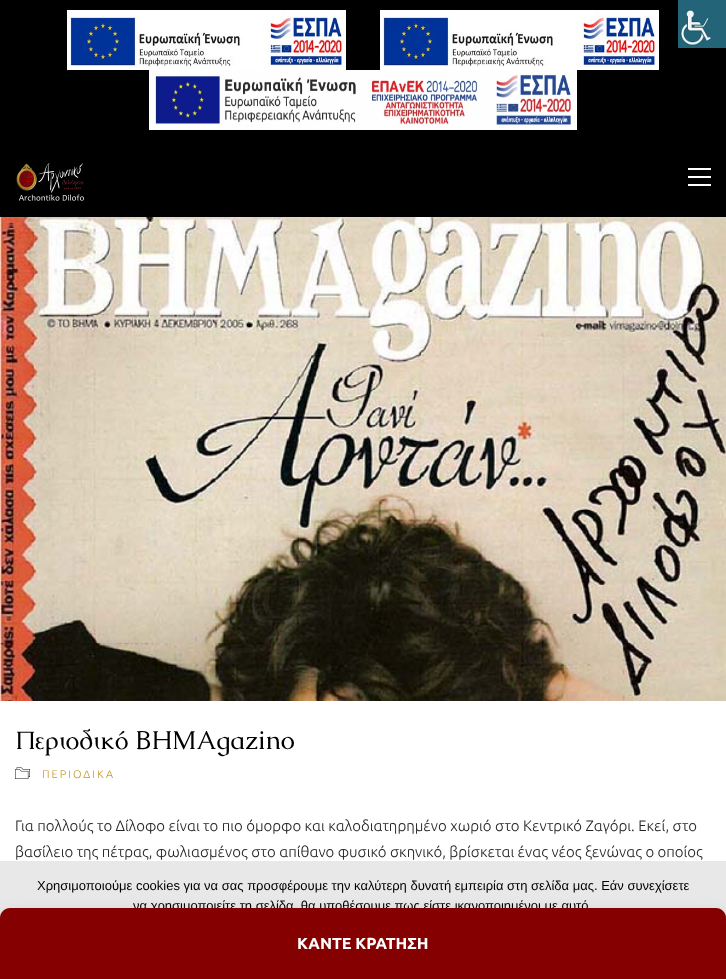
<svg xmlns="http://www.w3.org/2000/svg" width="726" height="979">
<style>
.a{font:26px Caudex;fill:#000}
.b{font:300 11px Ubuntu;letter-spacing:2px;fill:#c39a2c}
.c{font:300 15px Ubuntu;fill:#242321}
.d{font:13px Liberation Sans;fill:#000}
.e{font:bold 16px Ubuntu;fill:#fff}
</style>
<rect width="100%" height="100%" fill="#fff"/>
<path fill="#000" d="M0 0h726v217H0z"/>
<image href="1.png" x="678" y="0" width="48" height="48"/>
<image href="2.png" x="67" y="10" width="279" height="60"/>
<image href="3.png" x="380" y="10" width="279" height="60"/>
<image href="4.png" x="149" y="70" width="428" height="60"/>
<image href="5.png" x="16" y="163" width="68" height="38"/>
<path fill="#fff" d="M688 168h23v2H688z"/>
<path fill="#fff" d="M688 176h23v2H688z"/>
<path fill="#fff" d="M688 184h23v2H688z"/>
<image href="6.png" x="0" y="217" width="726" height="484"/>
<image href="7.png" x="15" y="767" width="15" height="12"/>
<path fill="#e8e8e8" d="M0 861h726v57H0z"/>
<rect fill="#00000030" filter="blur(10px)" y="918" width="726" height="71" rx="10"/>
<text class="a" x="15" y="749">Περιοδικό ΒΗΜΑgazino</text>
<text class="b" x="42" y="778">ΠΕΡΙΟΔΙΚΑ</text>
<text class="c" x="15" y="831">Για πολλούς το Δίλοφο είναι το πιο όμορφο και καλοδιατηρημένο χωριό στο Κεντρικό Ζαγόρι. Εκεί, στο</text>
<text class="c" x="15" y="857">βασίλειο της πέτρας, φωλιασμένος στο απίθανο φυσικό σκηνικό, βρίσκεται ένας νέος ξενώνας ο οποίος</text>
<text class="d" x="37" y="890">Χρησιμοποιούμε cookies για να σας προσφέρουμε την καλύτερη δυνατή εμπειρία στη σελίδα μας. Εάν συνεχίσετε</text>
<text class="d" x="133" y="910">να χρησιμοποιείτε τη σελίδα, θα υποθέσουμε πως είστε ικανοποιημένοι με αυτό</text>
<path fill="#850001" d="M10 908h706c5.5 0 10 4.5 10 10v61h-726v-61c0-5.5 4.5-10 10-10z"/>
<text class="e" x="297" y="949">ΚΑΝΤΕ ΚΡΑΤΗΣΗ</text>
</svg>
